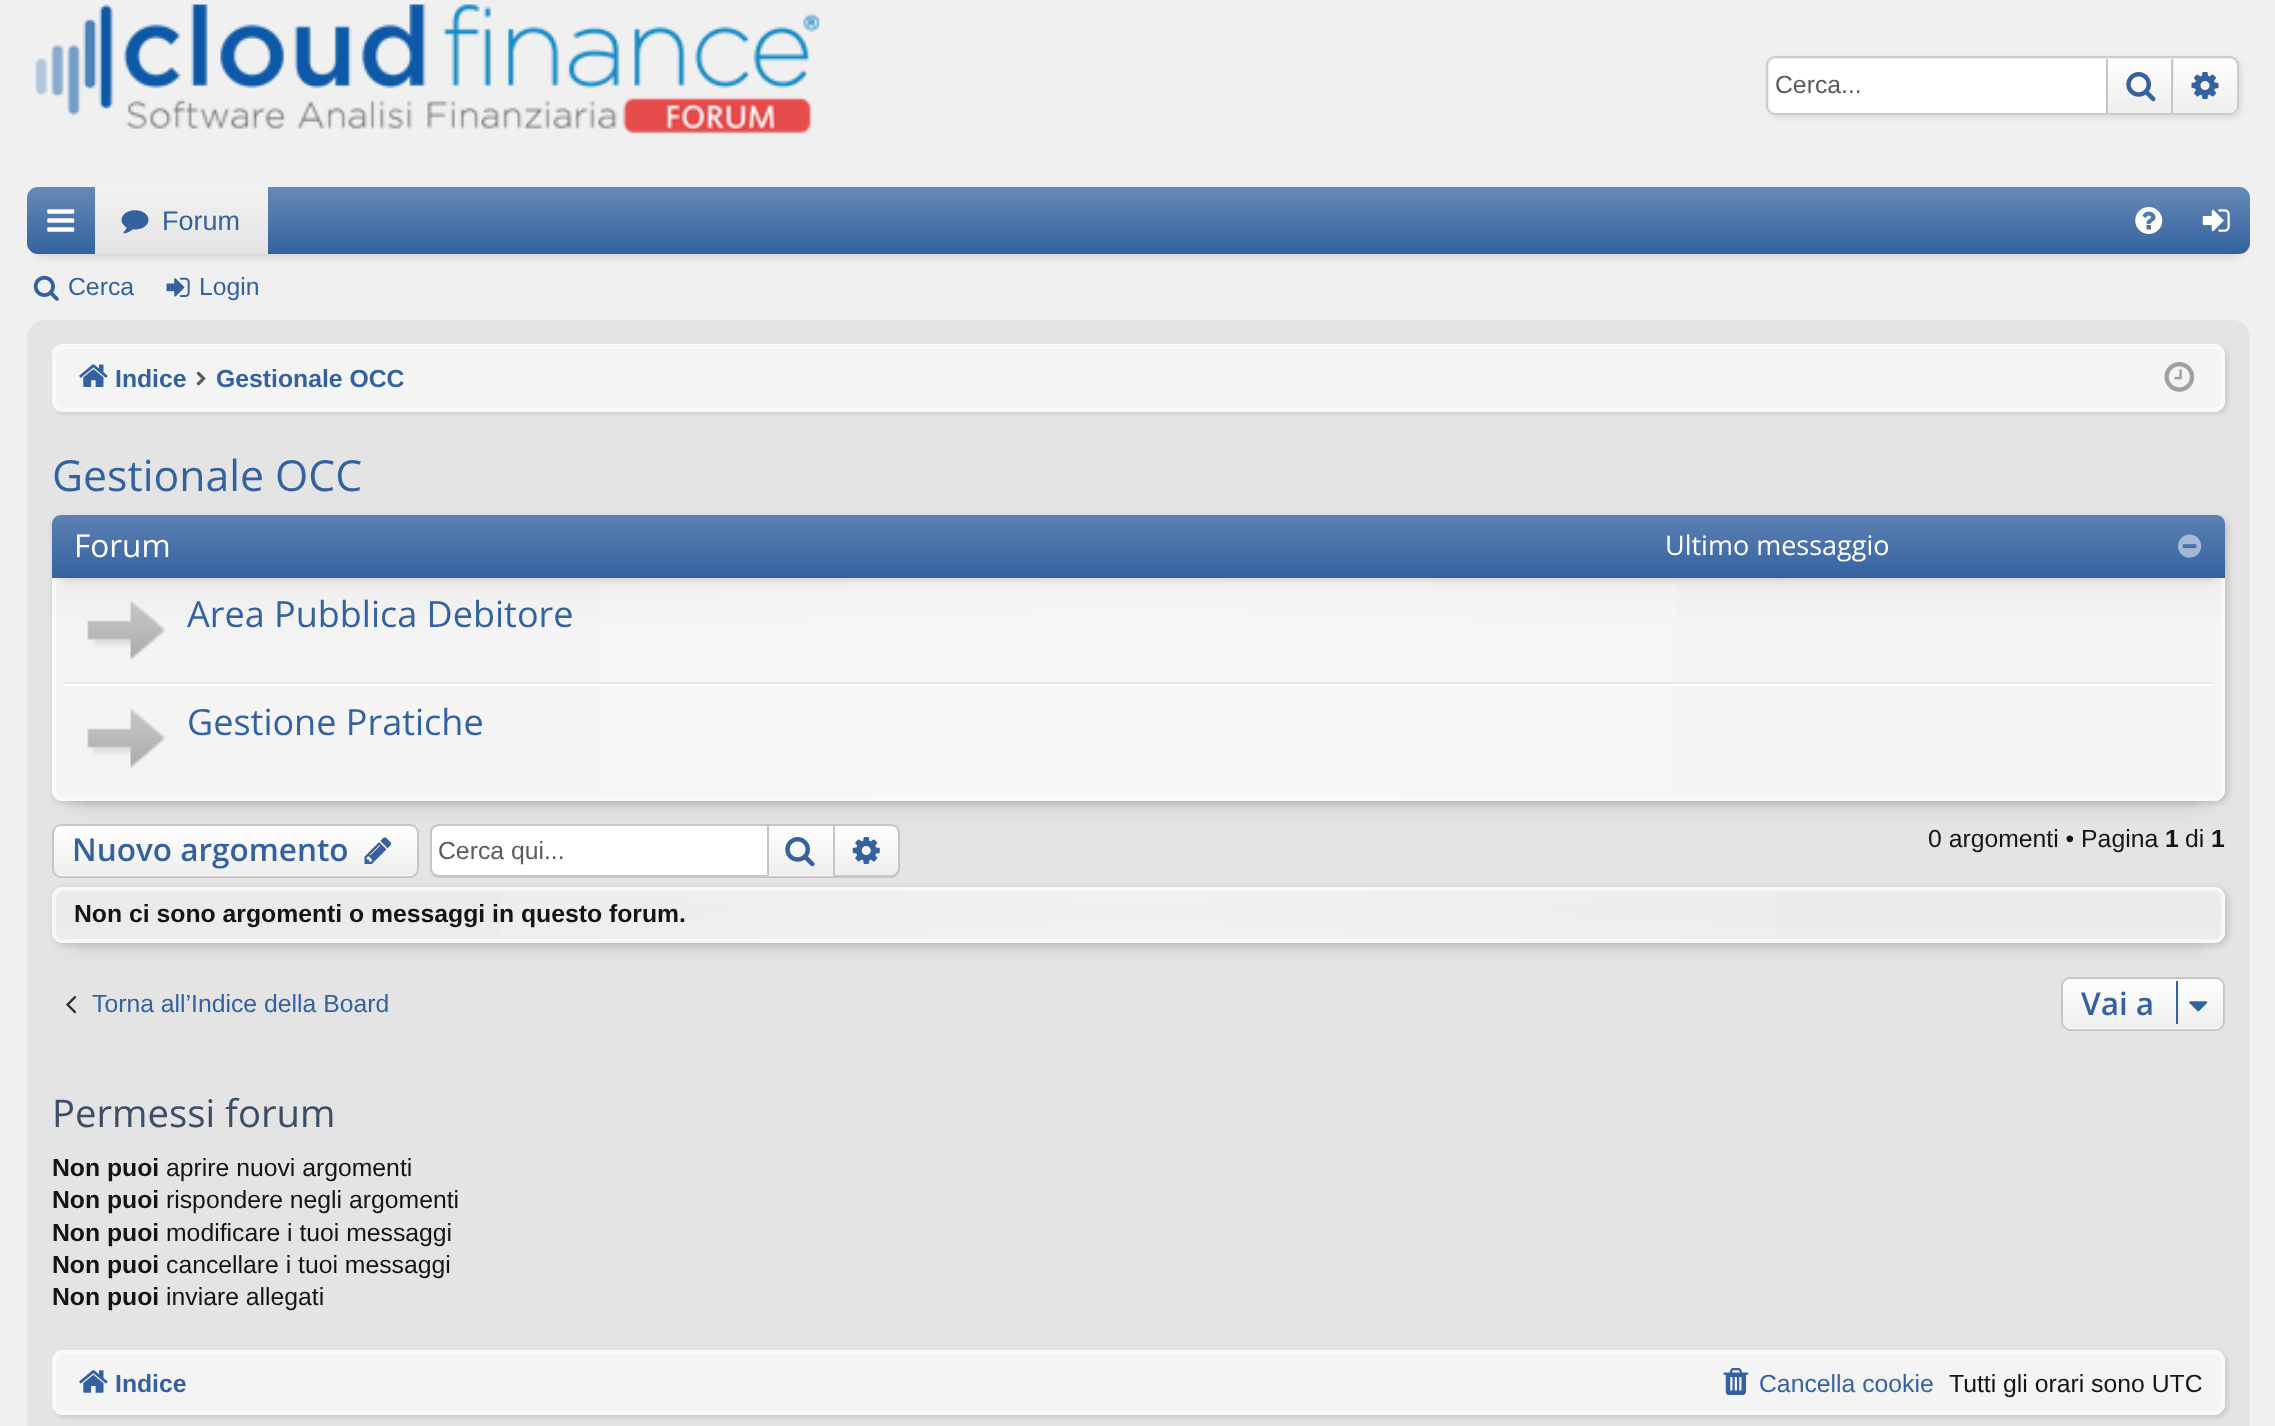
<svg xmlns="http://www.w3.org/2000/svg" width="2275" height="1426">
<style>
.a{font:24.75px Liberation Sans;fill:#5b5b5b}
.b{font:27px Liberation Sans;fill:#3462a0}
.c{font:24.75px Liberation Sans;fill:#3462a0}
.d{font:bold 24.75px Liberation Sans;fill:#3462a0}
.e{font:42.75px Open Sans;fill:#3462a0}
.f{font:31.5px Open Sans;fill:#fff}
.g{font:27px Open Sans;fill:#fff}
.h{font:36px Open Sans;fill:#3462a0}
.i{font:600 31.5px Open Sans;fill:#3462a0}
.j{font:24.75px Liberation Sans;fill:#141414}
.k{font:bold 24.75px Liberation Sans;fill:#141414}
.l{font:38.25px Open Sans;fill:#3c4d65}
</style>
<defs>
<clipPath id="clip1"><path d="M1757 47h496v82h-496zm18 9h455c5 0 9 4 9 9v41c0 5-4 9-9 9h-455c-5 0-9-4-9-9v-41c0-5 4-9 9-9z" clip-rule="evenodd"/></clipPath>
<linearGradient id="g1" gradientUnits="userSpaceOnUse" x1="2140" y1="59" x2="2140" y2="113"><stop offset="0" stop-color="#fff"/><stop offset="1" stop-color="#eee"/></linearGradient>
<linearGradient id="g2" gradientUnits="userSpaceOnUse" x1="2205" y1="59" x2="2205" y2="113"><stop offset="0" stop-color="#fff"/><stop offset="1" stop-color="#eee"/></linearGradient>
<linearGradient id="g3" gradientUnits="userSpaceOnUse" x1="1139" y1="187" x2="1139" y2="254"><stop offset="0" stop-color="#fff" stop-opacity="0.25"/><stop offset="1" stop-color="#fff" stop-opacity="0"/></linearGradient>
<linearGradient id="g4" gradientUnits="userSpaceOnUse" x1="181" y1="187" x2="181" y2="254"><stop offset="0" stop-color="#f2f2f2"/><stop offset="1" stop-color="#e4e4e4"/></linearGradient>
<clipPath id="clip2"><rect x="52" y="515" width="2173" height="286" rx="11"/></clipPath>
<linearGradient id="g5" gradientUnits="userSpaceOnUse" x1="1139" y1="517" x2="1139" y2="799"><stop offset="0" stop-color="#ccc" stop-opacity="0.2"/><stop offset="0.08" stop-color="#ccc" stop-opacity="0.25"/><stop offset="0.4" stop-color="#ccc" stop-opacity="0"/></linearGradient>
<linearGradient id="g6" gradientUnits="userSpaceOnUse" x1="54" y1="658" x2="2223" y2="658"><stop offset="0" stop-color="#fff" stop-opacity="0"/><stop offset="0.5" stop-color="#fff" stop-opacity="0.3"/><stop offset="1" stop-color="#fff" stop-opacity="0"/></linearGradient>
<linearGradient id="g7" gradientUnits="userSpaceOnUse" x1="1139" y1="515" x2="1139" y2="578"><stop offset="0" stop-color="#fff" stop-opacity="0.2"/><stop offset="1" stop-color="#fff" stop-opacity="0"/></linearGradient>
<clipPath id="clip3"><rect x="52" y="824" width="367" height="54" rx="9"/></clipPath>
<linearGradient id="g8" gradientUnits="userSpaceOnUse" x1="235" y1="826" x2="235" y2="875"><stop offset="0" stop-color="#fff"/><stop offset="1" stop-color="#fff" stop-opacity="0"/></linearGradient>
<linearGradient id="g9" gradientUnits="userSpaceOnUse" x1="235" y1="875" x2="235" y2="925"><stop offset="0" stop-color="#fff"/><stop offset="1" stop-color="#fff" stop-opacity="0"/></linearGradient>
<linearGradient id="g10" gradientUnits="userSpaceOnUse" x1="801" y1="826" x2="801" y2="875"><stop offset="0" stop-color="#fff"/><stop offset="1" stop-color="#eee"/></linearGradient>
<linearGradient id="g11" gradientUnits="userSpaceOnUse" x1="801" y1="875" x2="801" y2="925"><stop offset="0" stop-color="#fff"/><stop offset="1" stop-color="#eee"/></linearGradient>
<linearGradient id="g12" gradientUnits="userSpaceOnUse" x1="866" y1="826" x2="866" y2="875"><stop offset="0" stop-color="#fff"/><stop offset="1" stop-color="#fff" stop-opacity="0"/></linearGradient>
<clipPath id="clip4"><rect x="52" y="887" width="2173" height="56" rx="11"/></clipPath>
<linearGradient id="g13" gradientUnits="userSpaceOnUse" x1="1139" y1="889" x2="1139" y2="1001"><stop offset="0" stop-color="#ccc" stop-opacity="0.2"/><stop offset="0.2" stop-color="#ccc" stop-opacity="0.25"/><stop offset="1" stop-color="#ccc" stop-opacity="0"/></linearGradient>
<linearGradient id="g14" gradientUnits="userSpaceOnUse" x1="54" y1="915" x2="2223" y2="915"><stop offset="0" stop-color="#fff" stop-opacity="0"/><stop offset="0.5" stop-color="#fff" stop-opacity="0.3"/><stop offset="1" stop-color="#fff" stop-opacity="0"/></linearGradient>
<clipPath id="clip5"><rect x="2061" y="977" width="164" height="54" rx="9"/></clipPath>
<linearGradient id="g15" gradientUnits="userSpaceOnUse" x1="2143" y1="979" x2="2143" y2="1028"><stop offset="0" stop-color="#fff"/><stop offset="1" stop-color="#fff" stop-opacity="0"/></linearGradient>
<linearGradient id="g16" gradientUnits="userSpaceOnUse" x1="2143" y1="1028" x2="2143" y2="1078"><stop offset="0" stop-color="#fff"/><stop offset="1" stop-color="#fff" stop-opacity="0"/></linearGradient>
</defs>
<rect width="100%" height="100%" fill="#f0f0f0"/>
<image href="1.png" x="35" y="4" width="784" height="130"/>
<g clip-path="url(#clip1)">
<rect fill="#0000001a" filter="blur(3.5px)" x="1769" y="59" width="472" height="58" rx="9"/>
</g>
<rect fill="none" stroke="#ccc" stroke-width="2" x="1767" y="57" width="471" height="57" rx="8"/>
<path fill="#fff" d="M1778 59h328v54h-328c-5 0-9-4-9-9v-36c0-5 4-9 9-9z"/>
<path fill="url(#g1)" d="M2108 59h63v40H2108z"/>
<path fill="#c6c6c6" d="M2171 59h2v54H2171z"/>
<path fill="#c6c6c6" d="M2106 59h2v54H2106z"/>
<image href="2.png" x="2126" y="72" width="30" height="30"/>
<path fill="url(#g2)" d="M2174 59h54c5 0 9 4 9 9v36c0 5-4 9-9 9h-54z"/>
<image href="3.png" x="2191" y="72" width="28" height="27"/>
<path fill="#00000033" filter="blur(5.5px)" d="M38 209h2201v45H38z"/>
<rect fill="#3462a0" x="27" y="187" width="2223" height="67" rx="11"/>
<rect fill="url(#g3)" x="27" y="187" width="2223" height="67" rx="11"/>
<image href="4.png" x="47" y="209" width="28" height="23"/>
<path fill="url(#g4)" d="M95 187h173v67H95z"/>
<image href="5.png" x="121" y="210" width="28" height="24"/>
<image href="6.png" x="2135" y="207" width="28" height="27"/>
<image href="7.png" x="2202" y="209" width="28" height="23"/>
<image href="8.png" x="33" y="275" width="26" height="26"/>
<image href="9.png" x="166" y="277" width="24" height="20"/>
<rect fill="#e4e4e4" stroke="#e4e4e4" stroke-width="2" x="28" y="321" width="2221" height="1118" rx="17"/>
<rect fill="#0000001a" filter="blur(2px)" x="54" y="347" width="2174" height="67" rx="11"/>
<rect fill="#f4f4f4" x="52" y="344" width="2173" height="68" rx="11"/>
<rect fill="none" stroke="#fafafa" stroke-width="2" x="55" y="348" width="2167" height="61" rx="8"/>
<rect fill="none" stroke="#f9f9f9" stroke-width="2" x="53" y="345" width="2171" height="66" rx="10"/>
<image href="10.png" x="79" y="364" width="29" height="23"/>
<image href="11.png" x="196" y="371" width="10" height="15"/>
<image href="12.png" x="2164" y="362" width="31" height="30"/>
<path fill="#00000033" filter="blur(11px)" d="M74 560h2129v241H74z"/>
<rect fill="#00000026" filter="blur(3.5px)" x="54" y="518" width="2174" height="285" rx="11"/>
<rect fill="#f4f4f4" x="52" y="515" width="2173" height="286" rx="11"/>
<g clip-path="url(#clip2)">
<path fill="url(#g5)" d="M52 518h2173v104H52z"/>
</g>
<path fill="url(#g6)" d="M600 578h1077v221H600z"/>
<rect fill="none" stroke="#ffffff80" stroke-width="2" x="55" y="519" width="2167" height="279" rx="8"/>
<rect fill="none" stroke="#f9f9f9" stroke-width="2" x="53" y="516" width="2171" height="284" rx="10"/>
<path fill="#00000033" filter="blur(5.5px)" d="M63 538h2151v40H63z"/>
<path fill="#3462a0" d="M61 515h2155c5 0 9 4 9 9v54h-2173v-54c0-5 4-9 9-9z"/>
<path fill="url(#g7)" d="M61 515h2155c5 0 9 4 9 9v54h-2173v-54c0-5 4-9 9-9z"/>
<image href="13.png" x="2178" y="534" width="24" height="24"/>
<path fill="#e7e7e7" d="M63 682h2151v2H63z"/>
<image href="14.png" x="87" y="600" width="78" height="60"/>
<path fill="#fff" d="M63 684h2151v2H63z"/>
<image href="15.png" x="87" y="708" width="78" height="60"/>
<rect fill="#00000026" filter="blur(3.5px)" x="54" y="889" width="2174" height="56" rx="11"/>
<rect fill="#eee" x="52" y="824" width="367" height="54" rx="9"/>
<g clip-path="url(#clip3)">
<path fill="url(#g8)" d="M52 826h367v48H52z"/>
<path fill="url(#g9)" d="M52 875h367v3H52z"/>
</g>
<rect fill="none" stroke="#c6c6c6" stroke-width="2" x="53" y="825" width="365" height="52" rx="8"/>
<image href="16.png" x="364" y="837" width="28" height="27"/>
<path fill="#fff" d="M439 826h328v49h-328c-4 0-7-3-7-7v-35c0-4 3-7 7-7z"/>
<path fill="#c6c6c6" fill-rule="evenodd" d="M439 824h328v54h-328c-5 0-9-5-9-10v-36c0-4 4-8 9-8zm0 2h328v49h-328c-4 0-7-3-7-7v-36c0-3 3-6 7-6z"/>
<path fill="url(#g10)" d="M769 826h64v49H769z"/>
<path fill="url(#g11)" d="M767 875h68v1H767z"/>
<path fill="none" stroke="#c6c6c6" stroke-width="2" d="M768 825h66v52H768z"/>
<image href="17.png" x="785" y="837" width="30" height="30"/>
<path fill="#eee" d="M835 826h56c4 0 7 3 7 7v35c0 4-3 7-7 7h-56z"/>
<path fill="url(#g12)" d="M835 826h56c4 0 7 3 7 7v35c0 4-3 7-7 7h-56z"/>
<path fill="#c6c6c6" fill-rule="evenodd" d="M835 824h56c5 0 9 4 9 8v36c0 5-4 10-9 10h-56zm0 2h56c4 0 7 3 7 6v36c0 4-3 7-7 7h-56z"/>
<image href="18.png" x="852" y="837" width="28" height="27"/>
<path fill="#00000033" filter="blur(11px)" d="M74 932h2129v11H74z"/>
<rect fill="#f4f4f4" x="52" y="887" width="2173" height="56" rx="11"/>
<g clip-path="url(#clip4)">
<path fill="url(#g13)" d="M52 889h2173v52H52z"/>
</g>
<path fill="url(#g14)" d="M501 889h1275v52H501z"/>
<rect fill="none" stroke="#ffffff80" stroke-width="2" x="55" y="890" width="2167" height="50" rx="8"/>
<rect fill="none" stroke="#f9f9f9" stroke-width="2" x="53" y="888" width="2171" height="54" rx="10"/>
<image href="19.png" x="66" y="995" width="11" height="19"/>
<rect fill="#eee" x="2061" y="977" width="164" height="54" rx="9"/>
<g clip-path="url(#clip5)">
<path fill="url(#g15)" d="M2061 979h164v48H2061z"/>
<path fill="url(#g16)" d="M2061 1028h164v3H2061z"/>
</g>
<rect fill="none" stroke="#c6c6c6" stroke-width="2" x="2062" y="978" width="162" height="52" rx="8"/>
<path fill="#3462a0" d="M2176 981h2v43H2176z"/>
<image href="20.png" x="2189" y="1001" width="19" height="11"/>
<rect fill="#0000001a" filter="blur(2px)" x="54" y="1352" width="2174" height="66" rx="11"/>
<rect fill="#f4f4f4" x="52" y="1350" width="2173" height="65" rx="11"/>
<rect fill="none" stroke="#fafafa" stroke-width="2" x="55" y="1353" width="2167" height="59" rx="8"/>
<rect fill="none" stroke="#f9f9f9" stroke-width="2" x="53" y="1351" width="2171" height="63" rx="10"/>
<image href="21.png" x="79" y="1370" width="29" height="23"/>
<image href="22.png" x="1723" y="1368" width="26" height="27"/>
<text class="a" x="1775" y="93">Cerca...</text>
<text class="b" x="162" y="230">Forum</text>
<text class="c" x="68" y="295">Cerca</text>
<text class="c" x="199" y="295">Login</text>
<text class="d" x="115" y="387">Indice</text>
<text class="d" x="216" y="387">Gestionale OCC</text>
<text class="e" x="52" y="491">Gestionale OCC</text>
<text class="f" x="74" y="557">Forum</text>
<text class="g" x="1665" y="555">Ultimo messaggio</text>
<text class="h" x="187" y="627">Area Pubblica Debitore</text>
<text class="h" x="187" y="735">Gestione Pratiche</text>
<text class="i" x="72" y="861">Nuovo argomento</text>
<text class="a" x="438" y="859">Cerca qui...</text>
<text class="j" x="1928" y="847">0 argomenti • Pagina</text>
<text class="k" x="2165" y="847">1</text>
<text class="j" x="2185" y="847">di</text>
<text class="k" x="2211" y="847">1</text>
<text class="k" x="74" y="922">Non ci sono argomenti o messaggi in questo forum.</text>
<text class="c" x="92" y="1012">Torna all’Indice della Board</text>
<text class="i" x="2081" y="1015">Vai a</text>
<text class="l" x="52" y="1127">Permessi forum</text>
<text class="k" x="52" y="1176">Non puoi</text>
<text class="j" x="166" y="1176">aprire nuovi argomenti</text>
<text class="k" x="52" y="1208">Non puoi</text>
<text class="j" x="166" y="1208">rispondere negli argomenti</text>
<text class="k" x="52" y="1241">Non puoi</text>
<text class="j" x="166" y="1241">modificare i tuoi messaggi</text>
<text class="k" x="52" y="1273">Non puoi</text>
<text class="j" x="166" y="1273">cancellare i tuoi messaggi</text>
<text class="k" x="52" y="1305">Non puoi</text>
<text class="j" x="166" y="1305">inviare allegati</text>
<text class="d" x="115" y="1392">Indice</text>
<text class="c" x="1759" y="1392">Cancella cookie</text>
<text class="j" x="1949" y="1392">Tutti gli orari sono UTC</text>
</svg>
